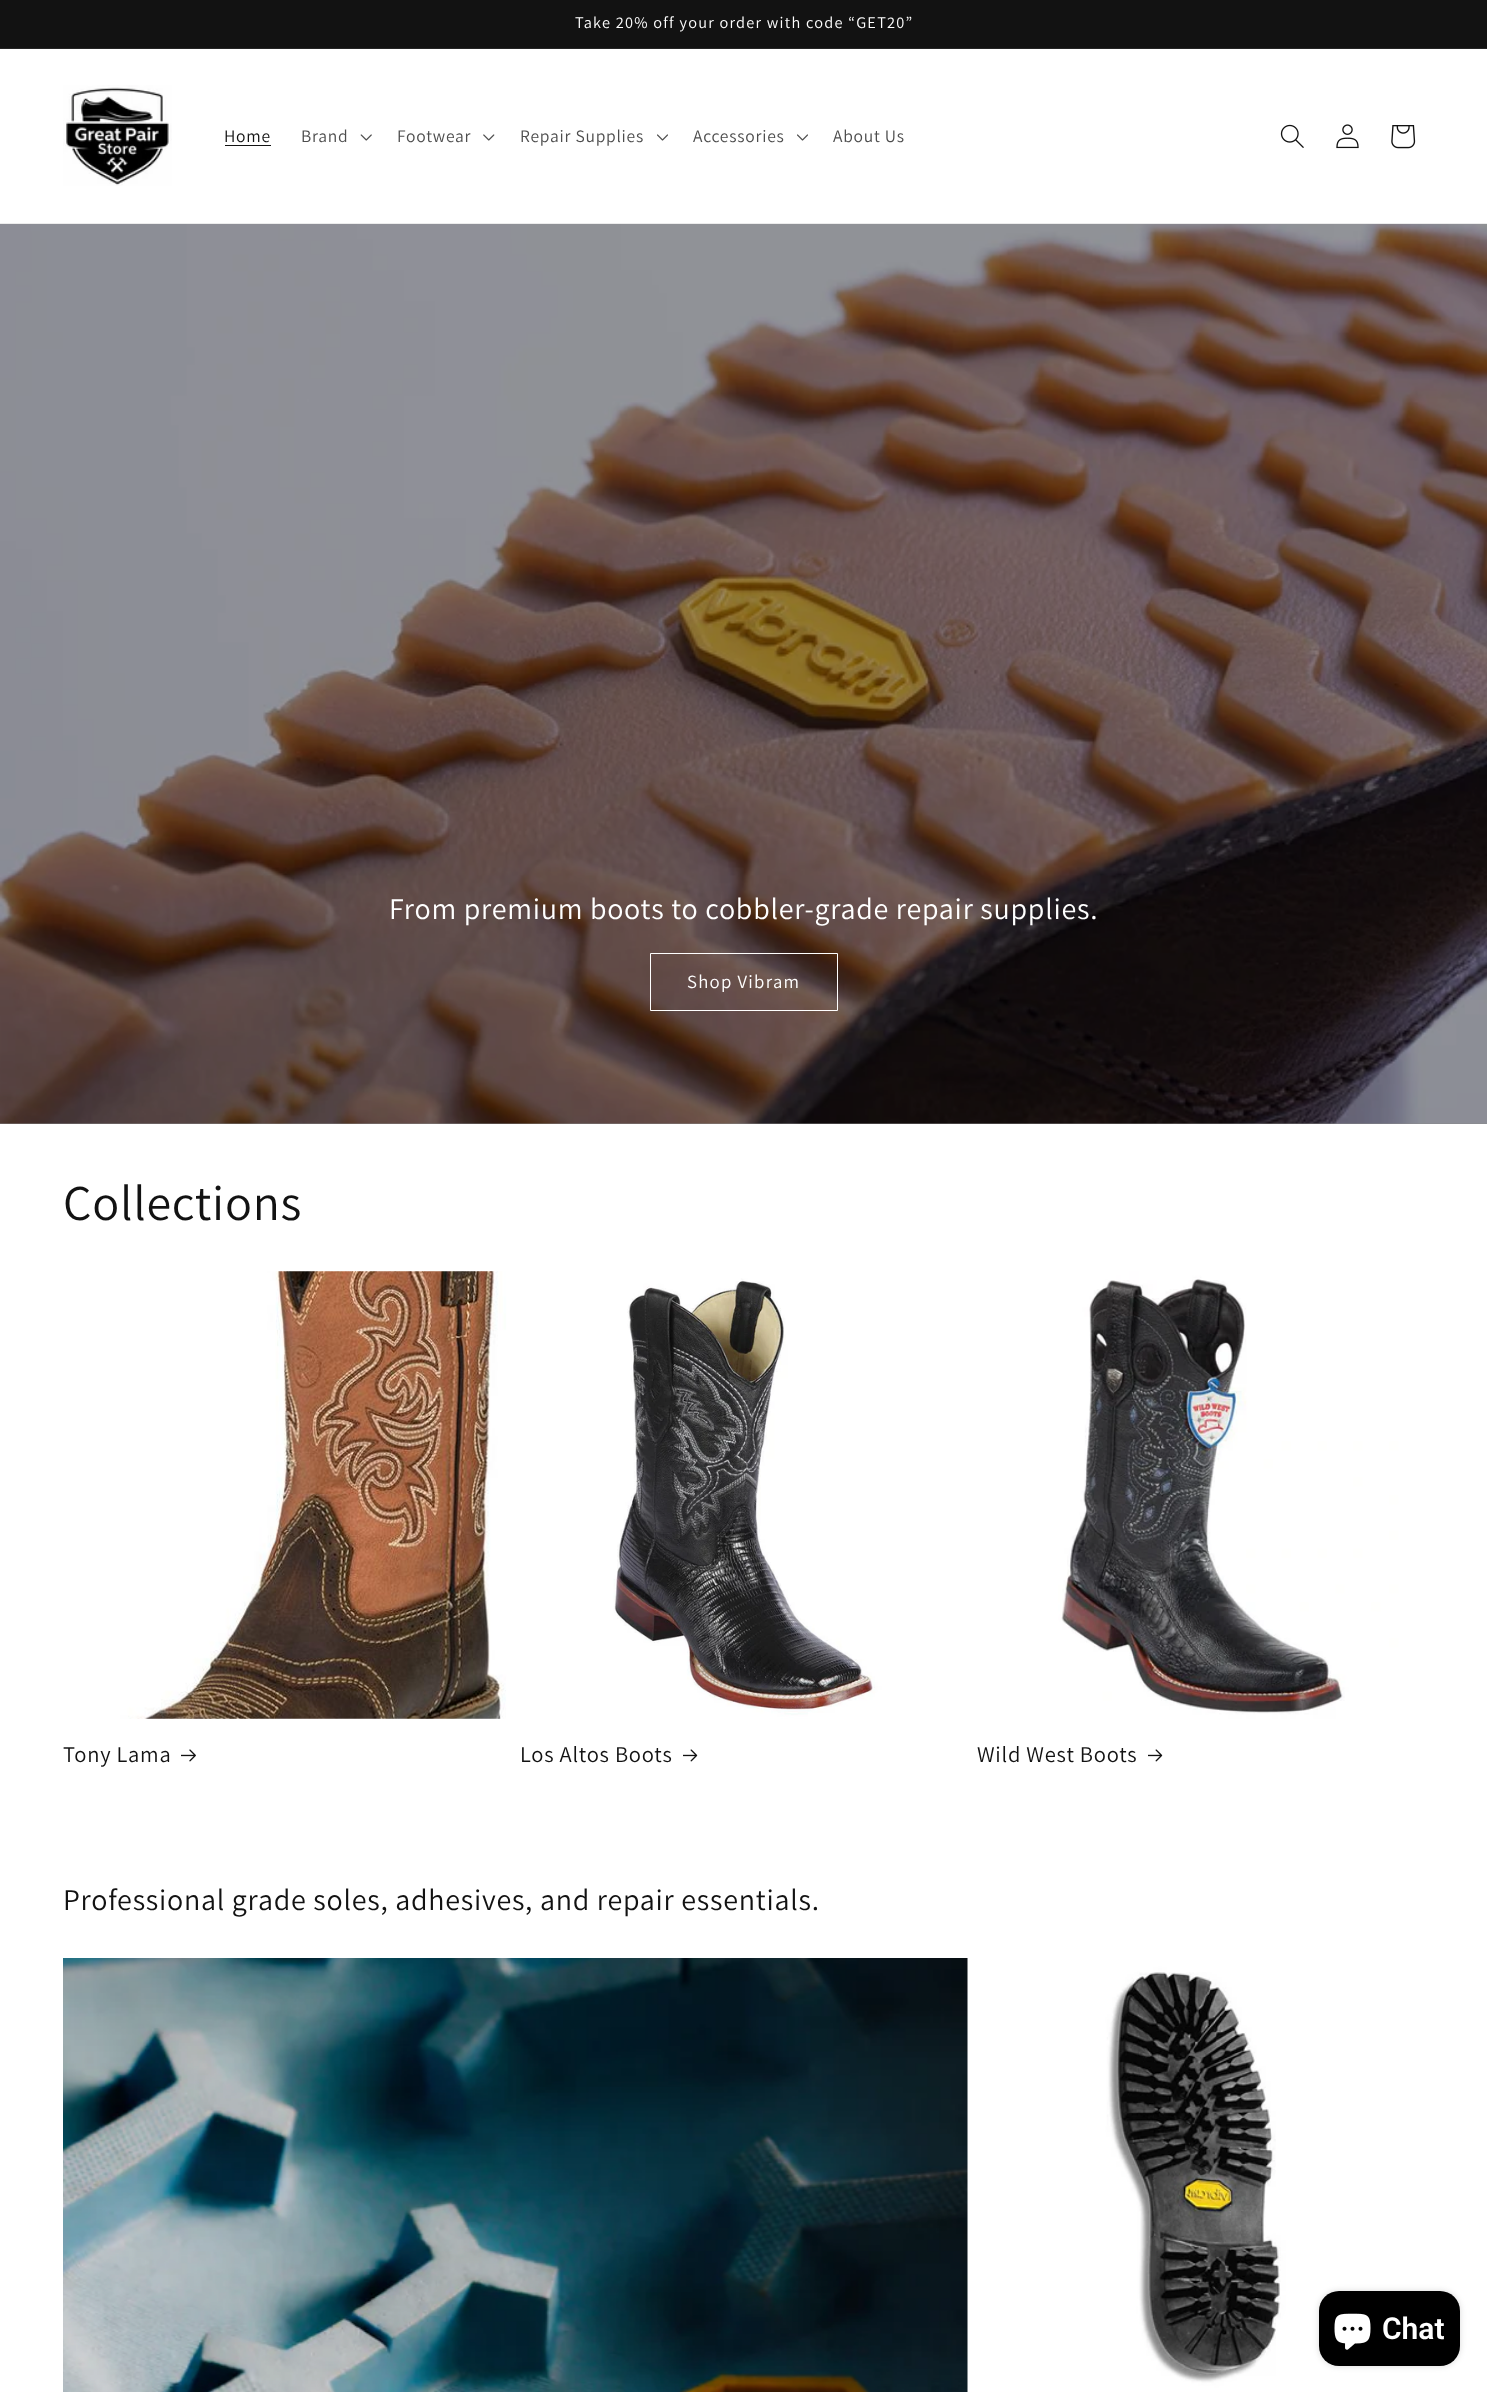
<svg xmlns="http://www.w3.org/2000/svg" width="1487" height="2392">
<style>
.a{font:16.25px Assistant;letter-spacing:1.25px;fill:#fff}
.b{font:17.5px Assistant;letter-spacing:0.75px;fill:#121212}
.c{font:17.5px Assistant;letter-spacing:0.75px;fill:#4d4d4d}
.d{font:30px Assistant;letter-spacing:0.75px;fill:#fff}
.e{font:18.75px Assistant;letter-spacing:1.25px;fill:#fff}
.f{font:50px Assistant;letter-spacing:0.75px;fill:#121212}
.g{font:22.5px Assistant;letter-spacing:0.75px;fill:#121212}
.h{font:30px Assistant;letter-spacing:0.75px;fill:#121212}
.i{font:600 30px Roboto;fill:#fff}
</style>
<rect width="100%" height="100%" fill="#fff"/>
<path fill="#121212" d="M0 0h1487v48H0z"/>
<path fill="#252525" d="M0 48h1487v1H0z"/>
<path fill="#ececec" d="M0 223h1487v1H0z"/>
<image href="1.png" x="63" y="85" width="109" height="101"/>
<path fill="#121212" d="M225 145h46v1H225z"/>
<image href="2.png" x="360" y="134" width="12" height="7"/>
<image href="3.png" x="483" y="134" width="12" height="7"/>
<image href="4.png" x="657" y="134" width="11" height="7"/>
<image href="4.png" x="797" y="134" width="11" height="7"/>
<image href="5.png" x="1280" y="124" width="24" height="24"/>
<image href="6.png" x="1336" y="124" width="23" height="25"/>
<image href="7.png" x="1391" y="125" width="25" height="24"/>
<path fill="#8b8b8b" d="M0 1123h1487v1H0z"/>
<image href="8.png" x="0" y="224" width="1487" height="900"/>
<path fill="none" stroke="#fff" d="M650.5 953.5h187v57H650.5z"/>
<image href="9.png" x="63" y="1271" width="447" height="448"/>
<image href="10.png" x="181" y="1749" width="15" height="13"/>
<image href="11.png" x="520" y="1271" width="448" height="448"/>
<image href="12.png" x="683" y="1749" width="15" height="13"/>
<image href="13.png" x="978" y="1271" width="447" height="448"/>
<image href="12.png" x="1148" y="1749" width="15" height="13"/>
<path fill="#f3f3f3" d="M967 1958h1v434H967z"/>
<image href="14.png" x="63" y="1958" width="905" height="434"/>
<image href="15.png" x="978" y="1958" width="447" height="434"/>
<rect fill="#00000026" filter="blur(3px)" x="1319" y="2291" width="141" height="75" rx="20"/>
<rect fill="#000" x="1319" y="2291" width="141" height="75" rx="20"/>
<image href="16.png" x="1334" y="2313" width="37" height="37"/>
<text class="a" x="575" y="28">Take 20% off your order with code “GET20”</text>
<text class="b" x="224" y="142">Home</text>
<text class="c" x="301" y="142">Brand</text>
<text class="c" x="397" y="142">Footwear</text>
<text class="c" x="520" y="142">Repair Supplies</text>
<text class="c" x="693" y="142">Accessories</text>
<text class="c" x="833" y="142">About Us</text>
<text class="d" x="389" y="919">From premium boots to cobbler-grade repair supplies.</text>
<text class="e" x="687" y="988">Shop Vibram</text>
<text class="f" x="63" y="1220">Collections</text>
<text class="g" x="63" y="1762">Tony Lama</text>
<text class="g" x="520" y="1762">Los Altos Boots</text>
<text class="g" x="977" y="1762">Wild West Boots</text>
<text class="h" x="63" y="1910">Professional grade soles, adhesives, and repair essentials.</text>
<text class="i" x="1382" y="2339">Chat</text>
</svg>
